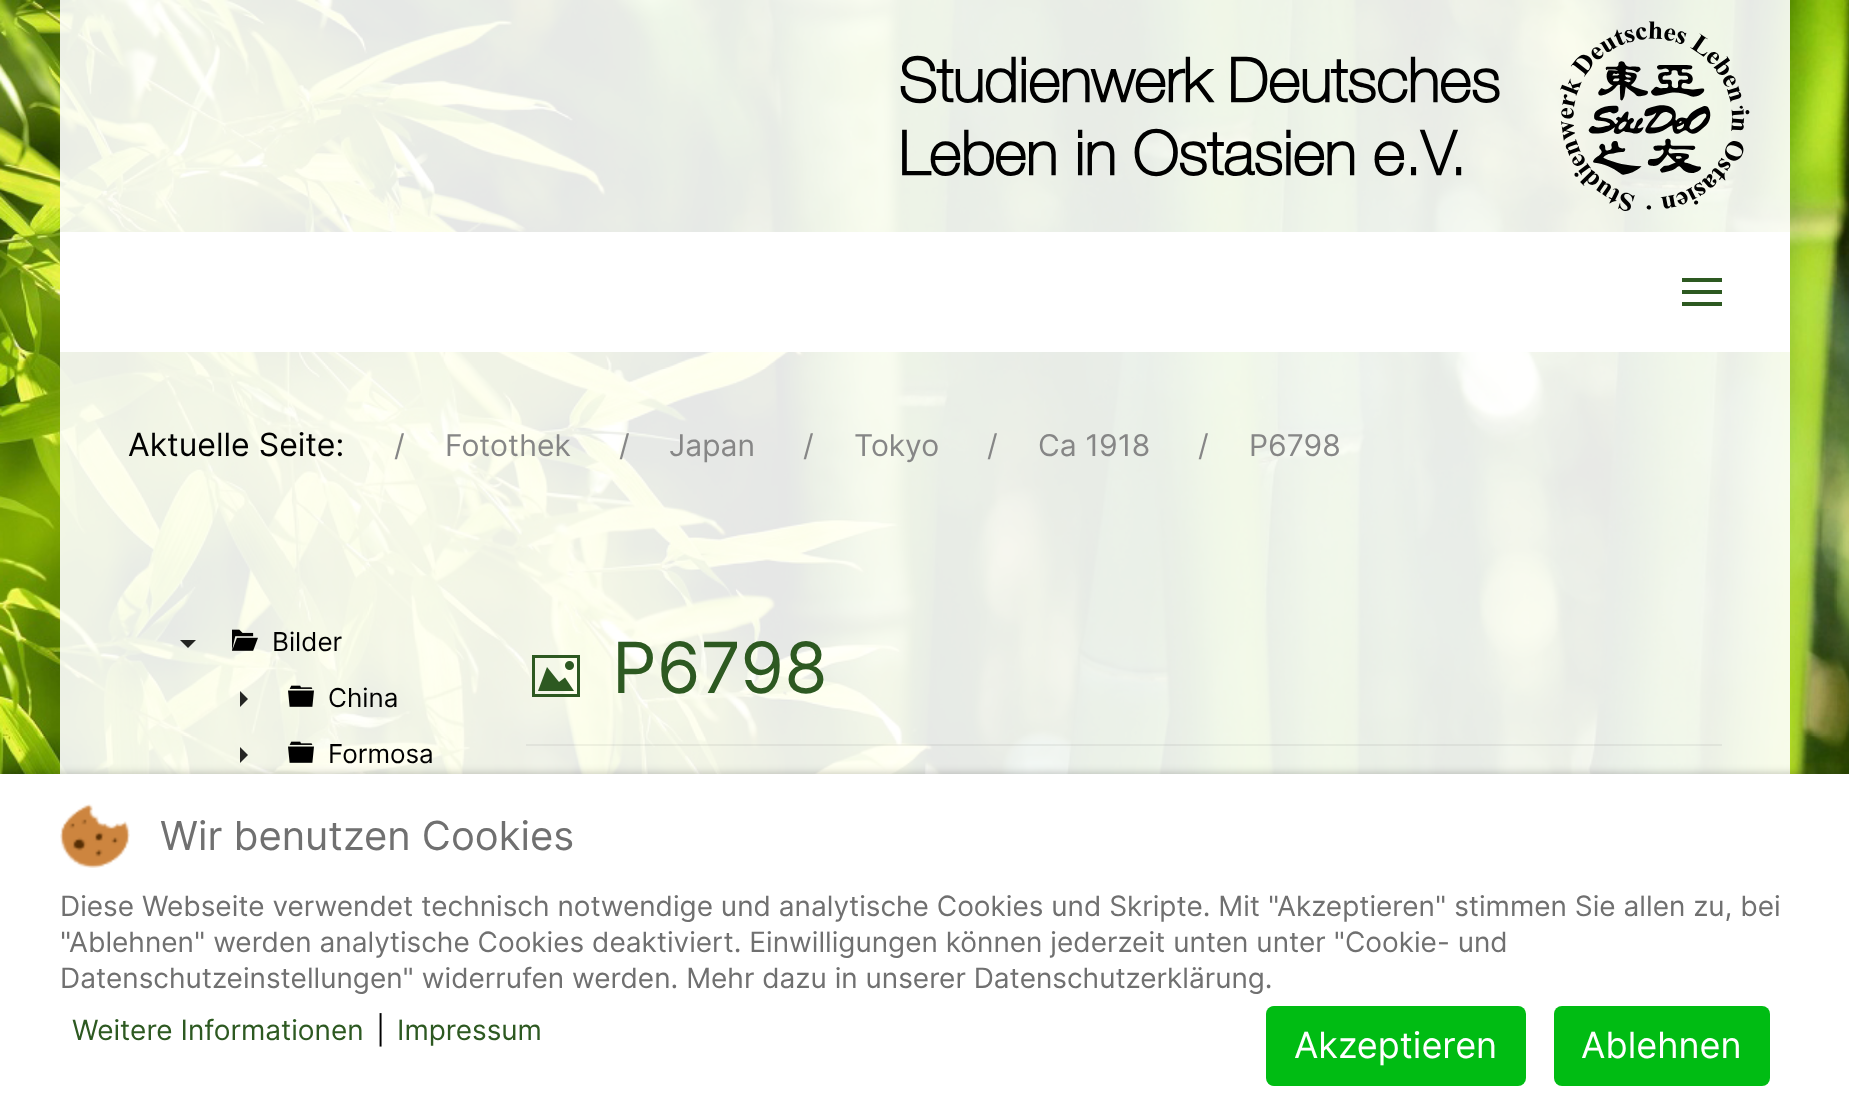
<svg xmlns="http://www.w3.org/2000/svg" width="1849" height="1116">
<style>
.a{font:32px Inter;fill:#000}
.b{font:30px Inter;fill:#868686}
.c{font:26px Inter;fill:#000}
.d{font:70.5px Inter;fill:#2d5921}
.e{font:40px Inter;fill:#707070}
.f{font:28px Inter;fill:#707070}
.g{font:28px Inter;fill:#2d5921}
.h{font:28px Inter;fill:#000}
.i{font:36px Inter;fill:#fff}
</style>
<rect width="100%" height="100%" fill="#fff"/>
<image href="1.png" x="0" y="0" width="1849" height="774"/>
<path fill="#ffffffe6" d="M60 0h1730v232H60z"/>
<image href="2.png" x="900" y="21" width="850" height="190"/>
<path fill="#fff" d="M60 232h1730v120H60z"/>
<path fill="#2d5921" d="M1682 278h40v4H1682z"/>
<path fill="#2d5921" d="M1682 290h40v4H1682z"/>
<path fill="#2d5921" d="M1682 302h40v4H1682z"/>
<path fill="#ffffffe6" d="M60 352h1730v186H60z"/>
<path fill="#ffffffe6" d="M60 538h1730v236H60z"/>
<path fill="#232422" d="M180 640h16l-8 8z"/>
<image href="3.png" x="232" y="629" width="26" height="22"/>
<path fill="#000000d9" d="M240 707v-16l8 8z"/>
<image href="4.png" x="288" y="685" width="26" height="22"/>
<path fill="#000000d9" d="M240 763v-16l8 8z"/>
<image href="5.png" x="288" y="741" width="26" height="22"/>
<image href="6.png" x="532" y="655" width="48" height="42"/>
<path fill="#0000000d" d="M526 744h1196v2H526z"/>
<path fill="#00000040" filter="blur(5px)" d="M0 774h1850v342H0z"/>
<path fill="#fff" d="M0 774h1849v342H0z"/>
<image href="7.png" x="60" y="804" width="70" height="64"/>
<rect fill="#00bc13" x="1266" y="1006" width="260" height="80" rx="8"/>
<rect fill="#00bc13" x="1554" y="1006" width="216" height="80" rx="8"/>
<text class="a" x="128" y="456">Aktuelle Seite:</text>
<text class="b" x="394" y="456">/</text>
<text class="b" x="445" y="456">Fotothek</text>
<text class="b" x="619" y="456">/</text>
<text class="b" x="669" y="456">Japan</text>
<text class="b" x="803" y="456">/</text>
<text class="b" x="854" y="456">Tokyo</text>
<text class="b" x="987" y="456">/</text>
<text class="b" x="1038" y="456">Ca 1918</text>
<text class="b" x="1198" y="456">/</text>
<text class="b" x="1249" y="456">P6798</text>
<text class="c" x="272" y="651">Bilder</text>
<text class="c" x="328" y="707">China</text>
<text class="c" x="328" y="763">Formosa</text>
<text class="d" x="612" y="693">P6798</text>
<text class="e" x="160" y="850">Wir benutzen Cookies</text>
<text class="f" x="60" y="916">Diese Webseite verwendet technisch notwendige und analytische Cookies und Skripte. Mit "Akzeptieren" stimmen Sie allen zu, bei</text>
<text class="f" x="60" y="952">"Ablehnen" werden analytische Cookies deaktiviert. Einwilligungen können jederzeit unten unter "Cookie- und</text>
<text class="f" x="60" y="988">Datenschutzeinstellungen" widerrufen werden. Mehr dazu in unserer Datenschutzerklärung.</text>
<text class="g" x="72" y="1040">Weitere Informationen</text>
<text class="h" x="376" y="1040">|</text>
<text class="g" x="397" y="1040">Impressum</text>
<text class="i" x="1294" y="1058">Akzeptieren</text>
<text class="i" x="1581" y="1058">Ablehnen</text>
</svg>
